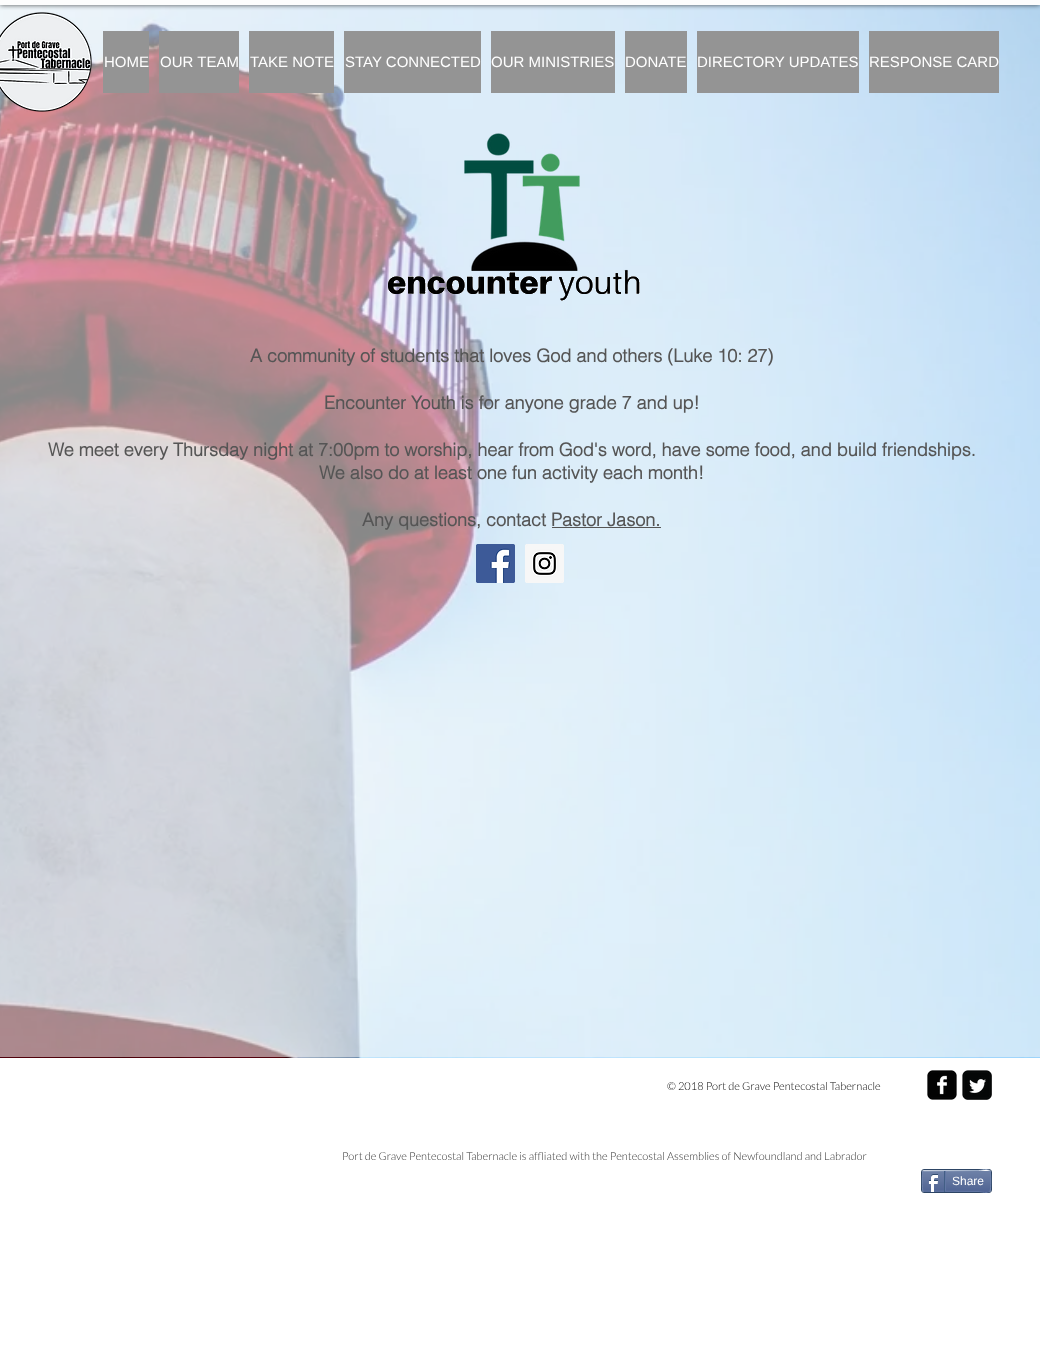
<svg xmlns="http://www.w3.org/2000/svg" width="1040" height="1357">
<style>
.a{font:15px Liberation Sans;fill:#fff}
.b{font:bold 18px helvetica;fill:#555}
.c{font:300 11px Lato;fill:#000}
.d{font:300 11px Lato;fill:#313131}
.e{font:12px Liberation Sans;fill:#fff}
</style>
<rect width="100%" height="100%" fill="#fff"/>
<image href="1.png" x="0" y="5" width="1040" height="1053"/>
<image href="2.png" x="0" y="12" width="92" height="100"/>
<path fill="#000000b3" filter="blur(2.5px)" d="M0 0h1040v5H0z"/>
<path fill="#fdfdfd" d="M0 0h1040v5H0z"/>
<path fill="#949494" d="M103 31h46v62H103z"/>
<path fill="#949494" d="M159 31h80v62H159z"/>
<path fill="#949494" d="M249 31h85v62H249z"/>
<path fill="#949494" d="M344 31h137v62H344z"/>
<path fill="#949494" d="M491 31h124v62H491z"/>
<path fill="#949494" d="M625 31h62v62H625z"/>
<path fill="#949494" d="M697 31h162v62H697z"/>
<path fill="#949494" d="M869 31h130v62H869z"/>
<image href="3.png" x="388" y="133" width="252" height="168"/>
<path fill="#555" d="M552 527h109v1H552z"/>
<image href="4.png" x="476" y="544" width="39" height="39"/>
<image href="5.png" x="525" y="544" width="39" height="39"/>
<image href="6.png" x="927" y="1070" width="30" height="30"/>
<image href="7.png" x="962" y="1070" width="30" height="30"/>
<rect fill="none" stroke="#2d4565" x="921.5" y="1169.5" width="70" height="23" rx="2.5"/>
<image href="8.png" x="922" y="1171" width="69" height="21"/>
<path fill="none" stroke="#9aabc6" d="M923 1171l55-.5c4 0 9-2.5 12 .5"/>
<path fill="none" stroke="#6f83ad" d="M990 1171c1 .5 1 19.5 0 20"/>
<path fill="none" stroke="#6176a3" d="M990 1191c-3 3-8 .5-12 .5l-55-.5"/>
<path fill="none" stroke="#6f83ad" d="M923 1191c-1-.5-1-19.5 0-20"/>
<image href="9.png" x="928" y="1174" width="10" height="18"/>
<path fill="#425e85" d="M944 1171h1v21H944z"/>
<path fill="#6176a3" d="M945 1171h1v20H945z"/>
<text class="a" x="104" y="67">HOME</text>
<text class="a" x="160" y="67">OUR TEAM</text>
<text class="a" x="250" y="67">TAKE NOTE</text>
<text class="a" x="345" y="67">STAY CONNECTED</text>
<text class="a" x="491" y="67">OUR MINISTRIES</text>
<text class="a" x="625" y="67">DONATE</text>
<text class="a" x="697" y="67">DIRECTORY UPDATES</text>
<text class="a" x="869" y="67">RESPONSE CARD</text>
<text class="b" x="250" y="362">A community of students that loves God and others (Luke 10: 27)</text>
<text class="b" x="324" y="409">Encounter Youth is for anyone grade 7 and up!</text>
<text class="b" x="48" y="456">We meet every Thursday night at 7:00pm to worship, hear from God's word, have some food, and build friendships.</text>
<text class="b" x="319" y="479">We also do at least one fun activity each month!</text>
<text class="b" x="362" y="526">Any questions, contact Pastor Jason.</text>
<text class="c" x="667" y="1090">© 2018 Port de Grave Pentecostal Tabernacle</text>
<text class="d" x="342" y="1160">Port de Grave Pentecostal Tabernacle is affliated with the Pentecostal Assemblies of Newfoundland and Labrador</text>
<text class="e" x="952" y="1185">Share</text>
</svg>
